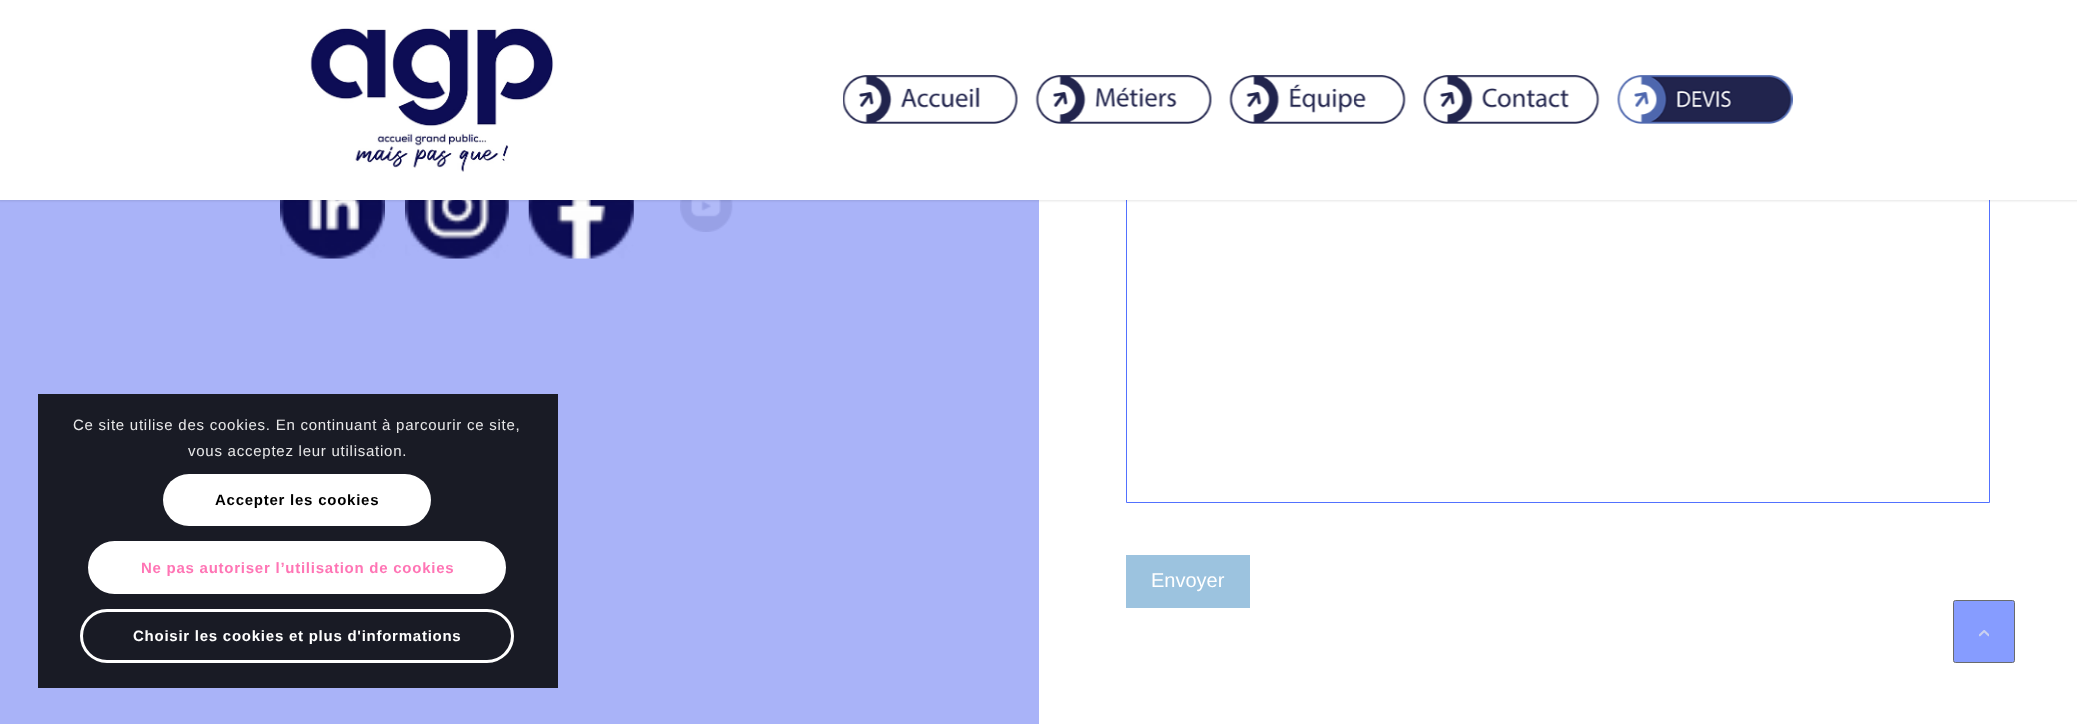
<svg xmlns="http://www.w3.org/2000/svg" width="2077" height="724">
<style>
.a{font:15px Liberation Sans;letter-spacing:0.75px;fill:#e8e8e9}
.b{font:bold 15px Liberation Sans;letter-spacing:0.75px;fill:#000}
.c{font:bold 15px Liberation Sans;letter-spacing:0.75px;fill:#ff75b5}
.d{font:bold 15px Liberation Sans;letter-spacing:0.75px;fill:#fff}
.e{font:20px Liberation Sans;fill:#fff}
</style>
<rect width="100%" height="100%" fill="#fff"/>
<path fill="#a9b3f8" d="M0 200h1039v524H0z"/>
<path fill="#191b25" d="M38 394h520v294H38z"/>
<rect fill="#fff" x="163" y="474" width="268" height="52" rx="26"/>
<rect fill="#fff" stroke="#fff" stroke-width="3" x="89.5" y="542.5" width="415" height="50" rx="25"/>
<rect fill="none" stroke="#fff" stroke-width="3" x="81.5" y="610.5" width="431" height="51" rx="25.5"/>
<image href="7.png" x="280" y="200" width="105" height="59"/>
<image href="8.png" x="405" y="200" width="104" height="59"/>
<image href="9.png" x="528" y="200" width="106" height="59"/>
<image href="10.png" x="680" y="200" width="53" height="32"/>
<path fill="none" stroke="#5271ff" d="M1126.5 143.5h863v359H1126.5z"/>
<path fill="#0000001a" filter="blur(1px)" d="M-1 -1h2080v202H-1z"/>
<path fill="#fff" d="M0 0h2077v200H0z"/>
<image href="1.png" x="310" y="28" width="244" height="144"/>
<image href="2.png" x="843" y="75" width="175" height="49"/>
<image href="3.png" x="1035" y="75" width="177" height="49"/>
<image href="4.png" x="1229" y="75" width="177" height="49"/>
<image href="5.png" x="1423" y="75" width="177" height="49"/>
<image href="6.png" x="1617" y="75" width="176" height="49"/>
<path fill="#9cc3df" d="M1126 555h124v53H1126z"/>
<rect fill="#869cff" stroke="#696b6d" x="1953.5" y="600.5" width="61" height="62" rx="2"/>
<image href="11.png" x="1979" y="630" width="10" height="7"/>
<text class="a" x="73" y="430">Ce site utilise des cookies. En continuant à parcourir ce site,</text>
<text class="a" x="188" y="456">vous acceptez leur utilisation.</text>
<text class="b" x="215" y="505">Accepter les cookies</text>
<text class="c" x="141" y="573">Ne pas autoriser l’utilisation de cookies</text>
<text class="d" x="133" y="641">Choisir les cookies et plus d'informations</text>
<text class="e" x="1151" y="587">Envoyer</text>
</svg>
